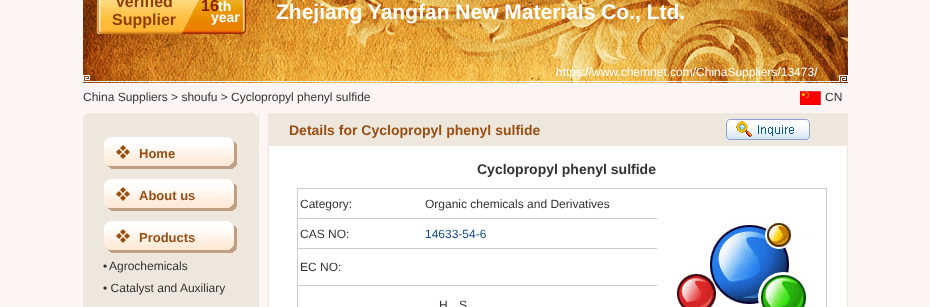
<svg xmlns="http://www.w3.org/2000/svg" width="930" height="307">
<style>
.a{font:bold 16px Liberation Sans;fill:#8f3f04}
.b{font:bold 16px Liberation Sans;fill:#862200}
.c{font:bold 14px Liberation Sans;fill:#fff}
.d{font:bold 21px Liberation Sans;fill:#fff}
.e{font:12px Liberation Sans;fill:#fff}
.f{font:12px Liberation Sans;fill:#333}
.g{font:bold 13px Liberation Sans;fill:#984f15}
.h{font:bold 14px Liberation Sans;fill:#984f15}
.i{font:bold 14px Liberation Sans;fill:#333}
.j{font:12px Liberation Sans;fill:#174f8c}
</style>
<rect width="100%" height="100%" fill="#fdf5f3"/>
<image href="1.png" x="83" y="0" width="765" height="83"/>
<image href="2.png" x="97" y="0" width="149" height="34"/>
<image href="3.png" x="800" y="91" width="21" height="14"/>
<path fill="#eee7de" d="M83 113h176v194H83z"/>
<image href="4.png" x="83" y="113" width="175" height="4"/>
<image href="5.png" x="104" y="137" width="133" height="32"/>
<image href="5.png" x="104" y="179" width="133" height="32"/>
<image href="5.png" x="104" y="221" width="133" height="32"/>
<path fill="none" stroke="#eee7de" d="M268.5 113.5h579v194H268.5z"/>
<path fill="#eee7de" d="M269 114h578v32H269z"/>
<image href="6.png" x="726" y="119" width="84" height="21"/>
<path fill="#fff" d="M269 146h578v161H269z"/>
<path fill="#ccc" d="M297 188h530v119H297z"/>
<path fill="#fff" d="M298 189h359v29H298z"/>
<path fill="#fff" d="M657 189h169v97H657z"/>
<path fill="#fff" d="M298 286h528v21H298z"/>
<image href="7.png" x="675" y="220" width="136" height="87"/>
<path fill="#fff" d="M298 219h359v29H298z"/>
<path fill="#fff" d="M298 249h359v36H298z"/>
<text class="a" x="115" y="7">Verified</text>
<text class="a" x="112" y="25">Supplier</text>
<text class="b" x="201" y="11">16</text>
<text class="c" x="218" y="11">th</text>
<text class="c" x="211" y="22">year</text>
<text class="d" x="276" y="19">Zhejiang Yangfan New Materials Co., Ltd.</text>
<text class="e" x="556" y="76">https://www.chemnet.com/ChinaSuppliers/13473/</text>
<text class="f" x="83" y="101">China Suppliers &gt; shoufu &gt; Cyclopropyl phenyl sulfide</text>
<text class="f" x="825" y="101">CN</text>
<text class="g" x="139" y="158">Home</text>
<text class="g" x="139" y="200">About us</text>
<text class="g" x="139" y="242">Products</text>
<text class="f" x="103" y="270">•</text>
<text class="f" x="109" y="270">Agrochemicals</text>
<text class="f" x="103" y="292">• Catalyst and Auxiliary</text>
<text class="h" x="289" y="135">Details for Cyclopropyl phenyl sulfide</text>
<text class="i" x="477" y="174">Cyclopropyl phenyl sulfide</text>
<text class="f" x="300" y="208">Category:</text>
<text class="f" x="425" y="208">Organic chemicals and Derivatives</text>
<text class="f" x="300" y="238">CAS NO:</text>
<text class="j" x="425" y="238">14633-54-6</text>
<text class="f" x="300" y="271">EC NO:</text>
<text class="f" x="439" y="309">H</text>
<text class="f" x="459" y="309">S</text>
</svg>
